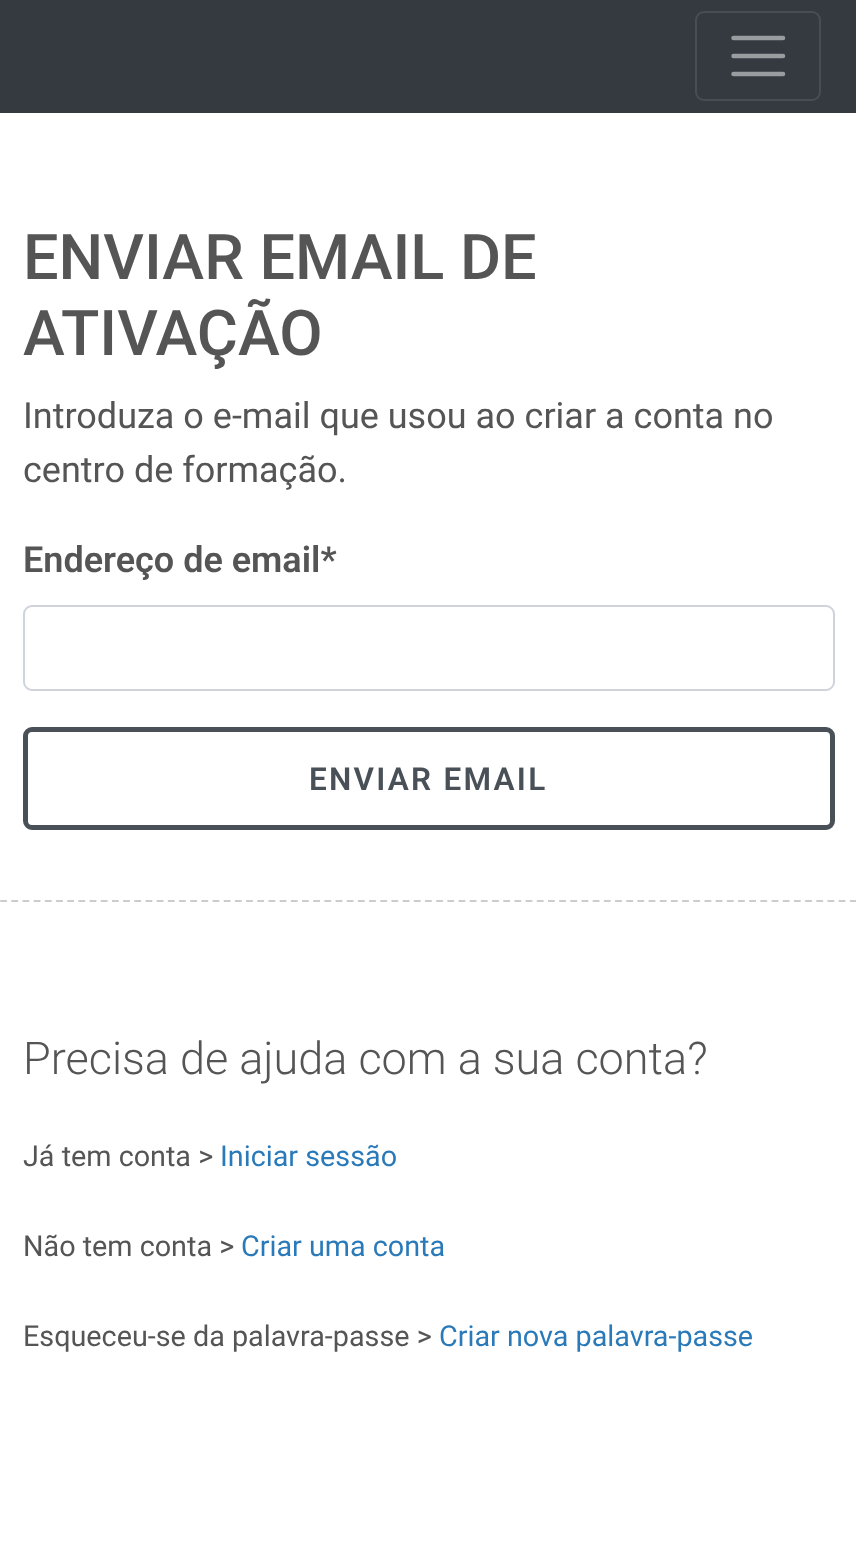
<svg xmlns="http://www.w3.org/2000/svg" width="856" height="1557">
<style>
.a{font:500 63px Roboto;fill:#555}
.b{font:36px Roboto;fill:#555}
.c{font:600 36px Roboto;fill:#555}
.d{font:600 31.5px Roboto;letter-spacing:2.25px;fill:#495057}
.e{font:300 45px Roboto;fill:#555}
.f{font:28.75px Roboto;fill:#555}
.g{font:28.75px Roboto;fill:#2a7ab9}
</style>
<rect width="100%" height="100%" fill="#fff"/>
<path fill="#343a40" d="M0 0h856v113H0z"/>
<rect fill="none" stroke="#484e53" stroke-width="2" x="696" y="12" width="124" height="88" rx="8"/>
<path fill="none" stroke="#9a9da0" stroke-width="4.5" stroke-linecap="round" d="M733.5 38h49.5m-49.5 18h49.5m-49.5 18h49.5"/>
<rect fill="none" stroke="#ced4da" stroke-width="2" x="24" y="606" width="810" height="84" rx="8"/>
<rect fill="none" stroke="#495057" stroke-width="5" x="25.5" y="729.5" width="807" height="98" rx="6.5"/>
<path fill="none" stroke="#ccc" stroke-width="2.2" stroke-dasharray="6.75 4.43" d="M-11 901h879.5"/>
<text class="a" x="23" y="279">ENVIAR EMAIL DE</text>
<text class="a" x="23" y="355">ATIVAÇÃO</text>
<text class="b" x="23" y="428">Introduza o e-mail que usou ao criar a conta no</text>
<text class="b" x="23" y="482">centro de formação.</text>
<text class="c" x="23" y="572">Endereço de email*</text>
<text class="d" x="309" y="790">ENVIAR EMAIL</text>
<text class="e" x="23" y="1074">Precisa de ajuda com a sua conta?</text>
<text class="f" x="23" y="1166">Já tem conta &gt;</text>
<text class="g" x="220" y="1166">Iniciar sessão</text>
<text class="f" x="23" y="1256">Não tem conta &gt;</text>
<text class="g" x="241" y="1256">Criar uma conta</text>
<text class="f" x="23" y="1346">Esqueceu-se da palavra-passe &gt;</text>
<text class="g" x="439" y="1346">Criar nova palavra-passe</text>
</svg>
